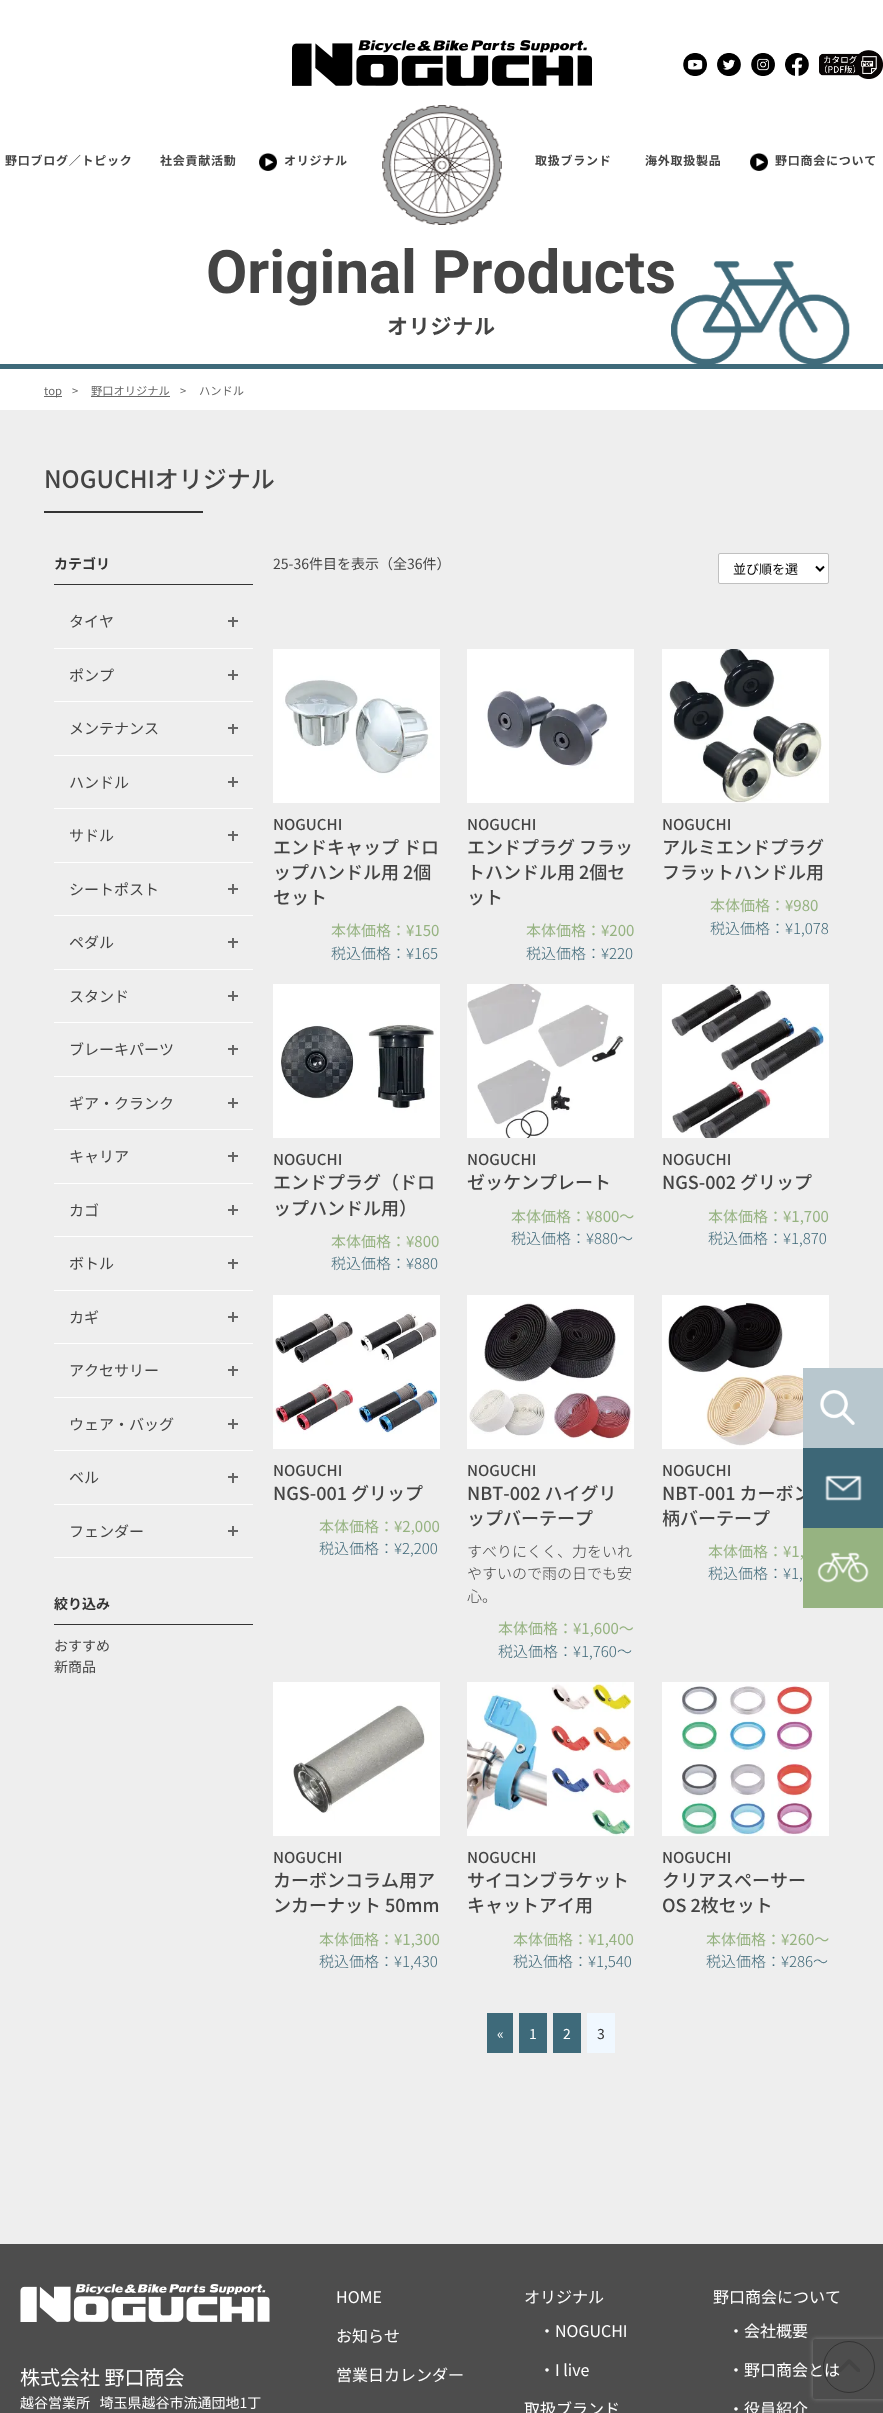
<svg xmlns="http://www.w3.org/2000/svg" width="883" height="2413">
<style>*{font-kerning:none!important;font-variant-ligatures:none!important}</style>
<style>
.a{font:bold 12px Noto Sans JP;letter-spacing:0.75px;fill:#444}
.b{font:bold 60px Roboto;fill:#444}
.c{font:bold 21px Noto Sans JP;letter-spacing:0.75px;fill:#444}
.d{font:11.25px Noto Sans JP;fill:#666}
.e{font:500 24px Noto Sans JP;fill:#444}
.f{font:bold 14px Noto Sans JP;fill:#333}
.g{font:15px Noto Sans JP;fill:#444}
.h{font:14px Noto Sans JP;fill:#444}
.i{font:13px Noto Sans JP;fill:#000}
.j{font:500 15px Noto Sans JP;fill:#444}
.k{font:500 18px Noto Sans JP;fill:#444}
.l{font:15px Noto Sans JP;fill:#96b381}
.m{font:300 15px Noto Sans JP;fill:#3d6777}
.n{font:300 15px Noto Sans JP;fill:#444}
.o{font:14px Noto Sans JP;fill:#fff}
.p{font:14px Noto Sans JP;fill:#333}
.q{font:20px Noto Sans JP;fill:#fff}
.r{font:16px Noto Sans JP;fill:#fff}
</style>
<defs>
<clipPath id="clip1"><path d="M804 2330h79v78h-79zm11 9h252c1 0 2 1 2 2v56c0 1-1 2-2 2h-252c-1 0-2-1-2-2v-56c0-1 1-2 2-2z" clip-rule="evenodd"/></clipPath>
</defs>
<rect width="100%" height="100%" fill="#fff"/>
<image href="1.png" x="292" y="40" width="300" height="46"/>
<image href="2.png" x="382" y="105" width="120" height="120"/>
<image href="3.png" x="683" y="53" width="24" height="23"/>
<image href="4.png" x="717" y="53" width="24" height="23"/>
<image href="5.png" x="751" y="53" width="24" height="23"/>
<image href="6.png" x="785" y="53" width="24" height="23"/>
<image href="7.png" x="819" y="50" width="64" height="29"/>
<image href="8.png" x="259" y="153" width="18" height="18"/>
<image href="9.png" x="750" y="153" width="18" height="18"/>
<path fill="#3e6a7a" d="M0 364h883v5H0z"/>
<path fill="#666" d="M44 396h18v1H44z"/>
<path fill="#666" d="M91 396h79v1H91z"/>
<path fill="#eee" d="M0 410h883v1834H0z"/>
<path fill="#333" d="M44 511h159v2H44z"/>
<path fill="#333" d="M54 584h199v1H54z"/>
<path fill="#fff" d="M54 648h199v1H54z"/>
<path fill="#666" d="M228 620h10v2H228z"/>
<path fill="#666" d="M232 617h2v10H232z"/>
<path fill="#fff" d="M54 701h199v1H54z"/>
<path fill="#666" d="M228 674h10v2H228z"/>
<path fill="#666" d="M232 670h2v10H232z"/>
<path fill="#fff" d="M54 755h199v1H54z"/>
<path fill="#666" d="M228 727h10v2H228z"/>
<path fill="#666" d="M232 724h2v10H232z"/>
<path fill="#fff" d="M54 808h199v1H54z"/>
<path fill="#666" d="M228 781h10v2H228z"/>
<path fill="#666" d="M232 777h2v10H232z"/>
<path fill="#fff" d="M54 862h199v1H54z"/>
<path fill="#666" d="M228 834h10v2H228z"/>
<path fill="#666" d="M232 831h2v10H232z"/>
<path fill="#fff" d="M54 915h199v1H54z"/>
<path fill="#666" d="M228 888h10v2H228z"/>
<path fill="#666" d="M232 884h2v10H232z"/>
<path fill="#fff" d="M54 969h199v1H54z"/>
<path fill="#666" d="M228 941h10v2H228z"/>
<path fill="#666" d="M232 938h2v10H232z"/>
<path fill="#fff" d="M54 1022h199v1H54z"/>
<path fill="#666" d="M228 995h10v2H228z"/>
<path fill="#666" d="M232 991h2v10H232z"/>
<path fill="#fff" d="M54 1076h199v1H54z"/>
<path fill="#666" d="M228 1048h10v2H228z"/>
<path fill="#666" d="M232 1045h2v10H232z"/>
<path fill="#fff" d="M54 1129h199v1H54z"/>
<path fill="#666" d="M228 1102h10v2H228z"/>
<path fill="#666" d="M232 1098h2v10H232z"/>
<path fill="#fff" d="M54 1183h199v1H54z"/>
<path fill="#666" d="M228 1155h10v2H228z"/>
<path fill="#666" d="M232 1152h2v10H232z"/>
<path fill="#fff" d="M54 1236h199v1H54z"/>
<path fill="#666" d="M228 1209h10v2H228z"/>
<path fill="#666" d="M232 1205h2v10H232z"/>
<path fill="#fff" d="M54 1290h199v1H54z"/>
<path fill="#666" d="M228 1262h10v2H228z"/>
<path fill="#666" d="M232 1259h2v10H232z"/>
<path fill="#fff" d="M54 1343h199v1H54z"/>
<path fill="#666" d="M228 1316h10v2H228z"/>
<path fill="#666" d="M232 1312h2v10H232z"/>
<path fill="#fff" d="M54 1397h199v1H54z"/>
<path fill="#666" d="M228 1369h10v2H228z"/>
<path fill="#666" d="M232 1366h2v10H232z"/>
<path fill="#fff" d="M54 1450h199v1H54z"/>
<path fill="#666" d="M228 1423h10v2H228z"/>
<path fill="#666" d="M232 1419h2v10H232z"/>
<path fill="#fff" d="M54 1504h199v1H54z"/>
<path fill="#666" d="M228 1476h10v2H228z"/>
<path fill="#666" d="M232 1473h2v10H232z"/>
<path fill="#fff" d="M54 1557h199v1H54z"/>
<path fill="#666" d="M228 1530h10v2H228z"/>
<path fill="#666" d="M232 1526h2v10H232z"/>
<path fill="#333" d="M54 1624h199v1H54z"/>
<rect fill="#fff" stroke="#c0c0c0" x="718.5" y="553.5" width="110" height="30" rx="1.5"/>
<path fill="none" stroke="#000" stroke-width="2" d="M816 566.5l4 4l4-4"/>
<image href="11.png" x="273" y="649" width="167" height="154"/>
<image href="12.png" x="467" y="649" width="167" height="154"/>
<image href="13.png" x="662" y="649" width="167" height="154"/>
<image href="14.png" x="273" y="984" width="167" height="154"/>
<image href="15.png" x="467" y="984" width="167" height="154"/>
<image href="16.png" x="662" y="984" width="167" height="154"/>
<image href="17.png" x="273" y="1295" width="167" height="154"/>
<image href="18.png" x="467" y="1295" width="167" height="154"/>
<image href="19.png" x="662" y="1295" width="167" height="154"/>
<image href="20.png" x="273" y="1682" width="167" height="154"/>
<image href="21.png" x="467" y="1682" width="167" height="154"/>
<image href="22.png" x="662" y="1682" width="167" height="154"/>
<path fill="#3e6a7a" d="M487 2013h26v40H487z"/>
<path fill="#3e6a7a" d="M519 2013h28v40H519z"/>
<path fill="#3e6a7a" d="M553 2013h28v40H553z"/>
<path fill="#f0f8ff" d="M587 2013h28v40H587z"/>
<path fill="#b8c7ce" d="M803 1368h80v80H803z"/>
<image href="23.png" x="820" y="1390" width="35" height="35"/>
<path fill="#96b381" d="M803 1528h80v80H803z"/>
<image href="25.png" x="817" y="1552" width="52" height="31"/>
<path fill="#4d4d4d" d="M0 2244h883v169H0z"/>
<image href="26.png" x="20" y="2284" width="250" height="38"/>
<text class="a" x="5" y="165">野口ブログ／トピック</text>
<text class="a" x="160" y="165">社会貢献活動</text>
<text class="a" x="284" y="165">オリジナル</text>
<text class="a" x="535" y="165">取扱ブランド</text>
<text class="a" x="645" y="165">海外取扱製品</text>
<text class="a" x="775" y="165">野口商会について</text>
<text class="b" x="206" y="293">Original Products</text>
<text class="c" x="387" y="334">オリジナル</text>
<image href="10.png" x="671" y="261" width="179" height="103"/>
<text class="d" x="44" y="395">top</text>
<text class="d" x="72" y="395">&gt;</text>
<text class="d" x="91" y="395">野口オリジナル</text>
<text class="d" x="180" y="395">&gt;</text>
<text class="d" x="199" y="395">ハンドル</text>
<text class="e" x="44" y="488">NOGUCHIオリジナル</text>
<text class="f" x="54" y="569">カテゴリ</text>
<text class="g" x="69" y="627">タイヤ</text>
<text class="g" x="69" y="681">ポンプ</text>
<text class="g" x="69" y="734">メンテナンス</text>
<text class="g" x="69" y="788">ハンドル</text>
<text class="g" x="69" y="841">サドル</text>
<text class="g" x="69" y="895">シートポスト</text>
<text class="g" x="69" y="948">ペダル</text>
<text class="g" x="69" y="1002">スタンド</text>
<text class="g" x="69" y="1055">ブレーキパーツ</text>
<text class="g" x="69" y="1109">ギア・クランク</text>
<text class="g" x="69" y="1162">キャリア</text>
<text class="g" x="69" y="1216">カゴ</text>
<text class="g" x="69" y="1269">ボトル</text>
<text class="g" x="69" y="1323">カギ</text>
<text class="g" x="69" y="1376">アクセサリー</text>
<text class="g" x="69" y="1430">ウェア・バッグ</text>
<text class="g" x="69" y="1483">ベル</text>
<text class="g" x="69" y="1537">フェンダー</text>
<text class="f" x="54" y="1609">絞り込み</text>
<text class="h" x="54" y="1651">おすすめ</text>
<text class="h" x="54" y="1672">新商品</text>
<text class="h" x="273" y="569">25-36件目を表示（全36件）</text>
<text class="i" x="733" y="574">並び順を選</text>
<text class="j" x="273" y="830">NOGUCHI</text>
<text class="k" x="273" y="854">エンドキャップ ドロ</text>
<text class="k" x="273" y="879">ップハンドル用 2個</text>
<text class="k" x="273" y="904">セット</text>
<text class="l" x="331" y="936">本体価格：¥150</text>
<text class="m" x="331" y="959">税込価格：¥165</text>
<text class="j" x="467" y="830">NOGUCHI</text>
<text class="k" x="467" y="854">エンドプラグ フラッ</text>
<text class="k" x="467" y="879">トハンドル用 2個セ</text>
<text class="k" x="467" y="904">ット</text>
<text class="l" x="526" y="936">本体価格：¥200</text>
<text class="m" x="526" y="959">税込価格：¥220</text>
<text class="j" x="662" y="830">NOGUCHI</text>
<text class="k" x="662" y="854">アルミエンドプラグ</text>
<text class="k" x="662" y="879">フラットハンドル用</text>
<text class="l" x="710" y="911">本体価格：¥980</text>
<text class="m" x="710" y="934">税込価格：¥1,078</text>
<text class="j" x="273" y="1165">NOGUCHI</text>
<text class="k" x="273" y="1189">エンドプラグ（ドロ</text>
<text class="k" x="273" y="1215">ップハンドル用）</text>
<text class="l" x="331" y="1247">本体価格：¥800</text>
<text class="m" x="331" y="1269">税込価格：¥880</text>
<text class="j" x="467" y="1165">NOGUCHI</text>
<text class="k" x="467" y="1189">ゼッケンプレート</text>
<text class="l" x="511" y="1222">本体価格：¥800〜</text>
<text class="m" x="511" y="1244">税込価格：¥880〜</text>
<text class="j" x="662" y="1165">NOGUCHI</text>
<text class="k" x="662" y="1189">NGS-002 グリップ</text>
<text class="l" x="708" y="1222">本体価格：¥1,700</text>
<text class="m" x="708" y="1244">税込価格：¥1,870</text>
<text class="j" x="273" y="1476">NOGUCHI</text>
<text class="k" x="273" y="1500">NGS-001 グリップ</text>
<text class="l" x="319" y="1532">本体価格：¥2,000</text>
<text class="m" x="319" y="1554">税込価格：¥2,200</text>
<text class="j" x="467" y="1476">NOGUCHI</text>
<text class="k" x="467" y="1500">NBT-002 ハイグリ</text>
<text class="k" x="467" y="1525">ップバーテープ</text>
<text class="n" x="467" y="1557">すべりにくく、力をいれ</text>
<text class="n" x="467" y="1579">やすいので雨の日でも安</text>
<text class="n" x="467" y="1602">心。</text>
<text class="l" x="498" y="1634">本体価格：¥1,600〜</text>
<text class="m" x="498" y="1657">税込価格：¥1,760〜</text>
<text class="j" x="662" y="1476">NOGUCHI</text>
<text class="k" x="662" y="1500">NBT-001 カーボン</text>
<text class="k" x="662" y="1525">柄バーテープ</text>
<text class="l" x="708" y="1557">本体価格：¥1,</text>
<text class="m" x="708" y="1579">税込価格：¥1,</text>
<text class="j" x="273" y="1863">NOGUCHI</text>
<text class="k" x="273" y="1887">カーボンコラム用ア</text>
<text class="k" x="273" y="1912">ンカーナット 50mm</text>
<text class="l" x="319" y="1945">本体価格：¥1,300</text>
<text class="m" x="319" y="1967">税込価格：¥1,430</text>
<text class="j" x="467" y="1863">NOGUCHI</text>
<text class="k" x="467" y="1887">サイコンブラケット</text>
<text class="k" x="467" y="1912">キャットアイ用</text>
<text class="l" x="513" y="1945">本体価格：¥1,400</text>
<text class="m" x="513" y="1967">税込価格：¥1,540</text>
<text class="j" x="662" y="1863">NOGUCHI</text>
<text class="k" x="662" y="1887">クリアスペーサー</text>
<text class="k" x="662" y="1912">OS 2枚セット</text>
<text class="l" x="706" y="1945">本体価格：¥260〜</text>
<text class="m" x="706" y="1967">税込価格：¥286〜</text>
<text class="o" x="497" y="2039">«</text>
<text class="o" x="529" y="2039">1</text>
<text class="o" x="563" y="2039">2</text>
<text class="p" x="597" y="2039">3</text>
<path fill="#3d6777" d="M803 1448h80v80H803z"/>
<image href="24.png" x="825" y="1475" width="37" height="26"/>
<text class="q" x="20" y="2385">株式会社 野口商会</text>
<text class="o" xml:space="preserve" x="20" y="2408">越谷営業所   埼玉県越谷市流通団地1丁</text>
<text class="r" x="336" y="2303">HOME</text>
<text class="r" x="336" y="2342">お知らせ</text>
<text class="r" x="336" y="2381">営業日カレンダー</text>
<text class="r" x="524" y="2303">オリジナル</text>
<text class="r" x="539" y="2337">・NOGUCHI</text>
<text class="r" x="539" y="2376">・I live</text>
<text class="r" x="524" y="2415">取扱ブランド</text>
<text class="r" x="713" y="2303">野口商会について</text>
<text class="r" x="728" y="2337">・会社概要</text>
<text class="r" x="728" y="2376">・野口商会とは</text>
<text class="r" x="728" y="2415">・役員紹介</text>
<circle fill="none" stroke="#333" cx="849" cy="2367" r="25.5"/>
<image href="27.png" x="838" y="2359" width="22" height="13"/>
<g clip-path="url(#clip1)">
<rect fill="#808080" filter="blur(2.5px)" x="813" y="2339" width="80" height="60" rx="2"/>
</g>
</svg>
